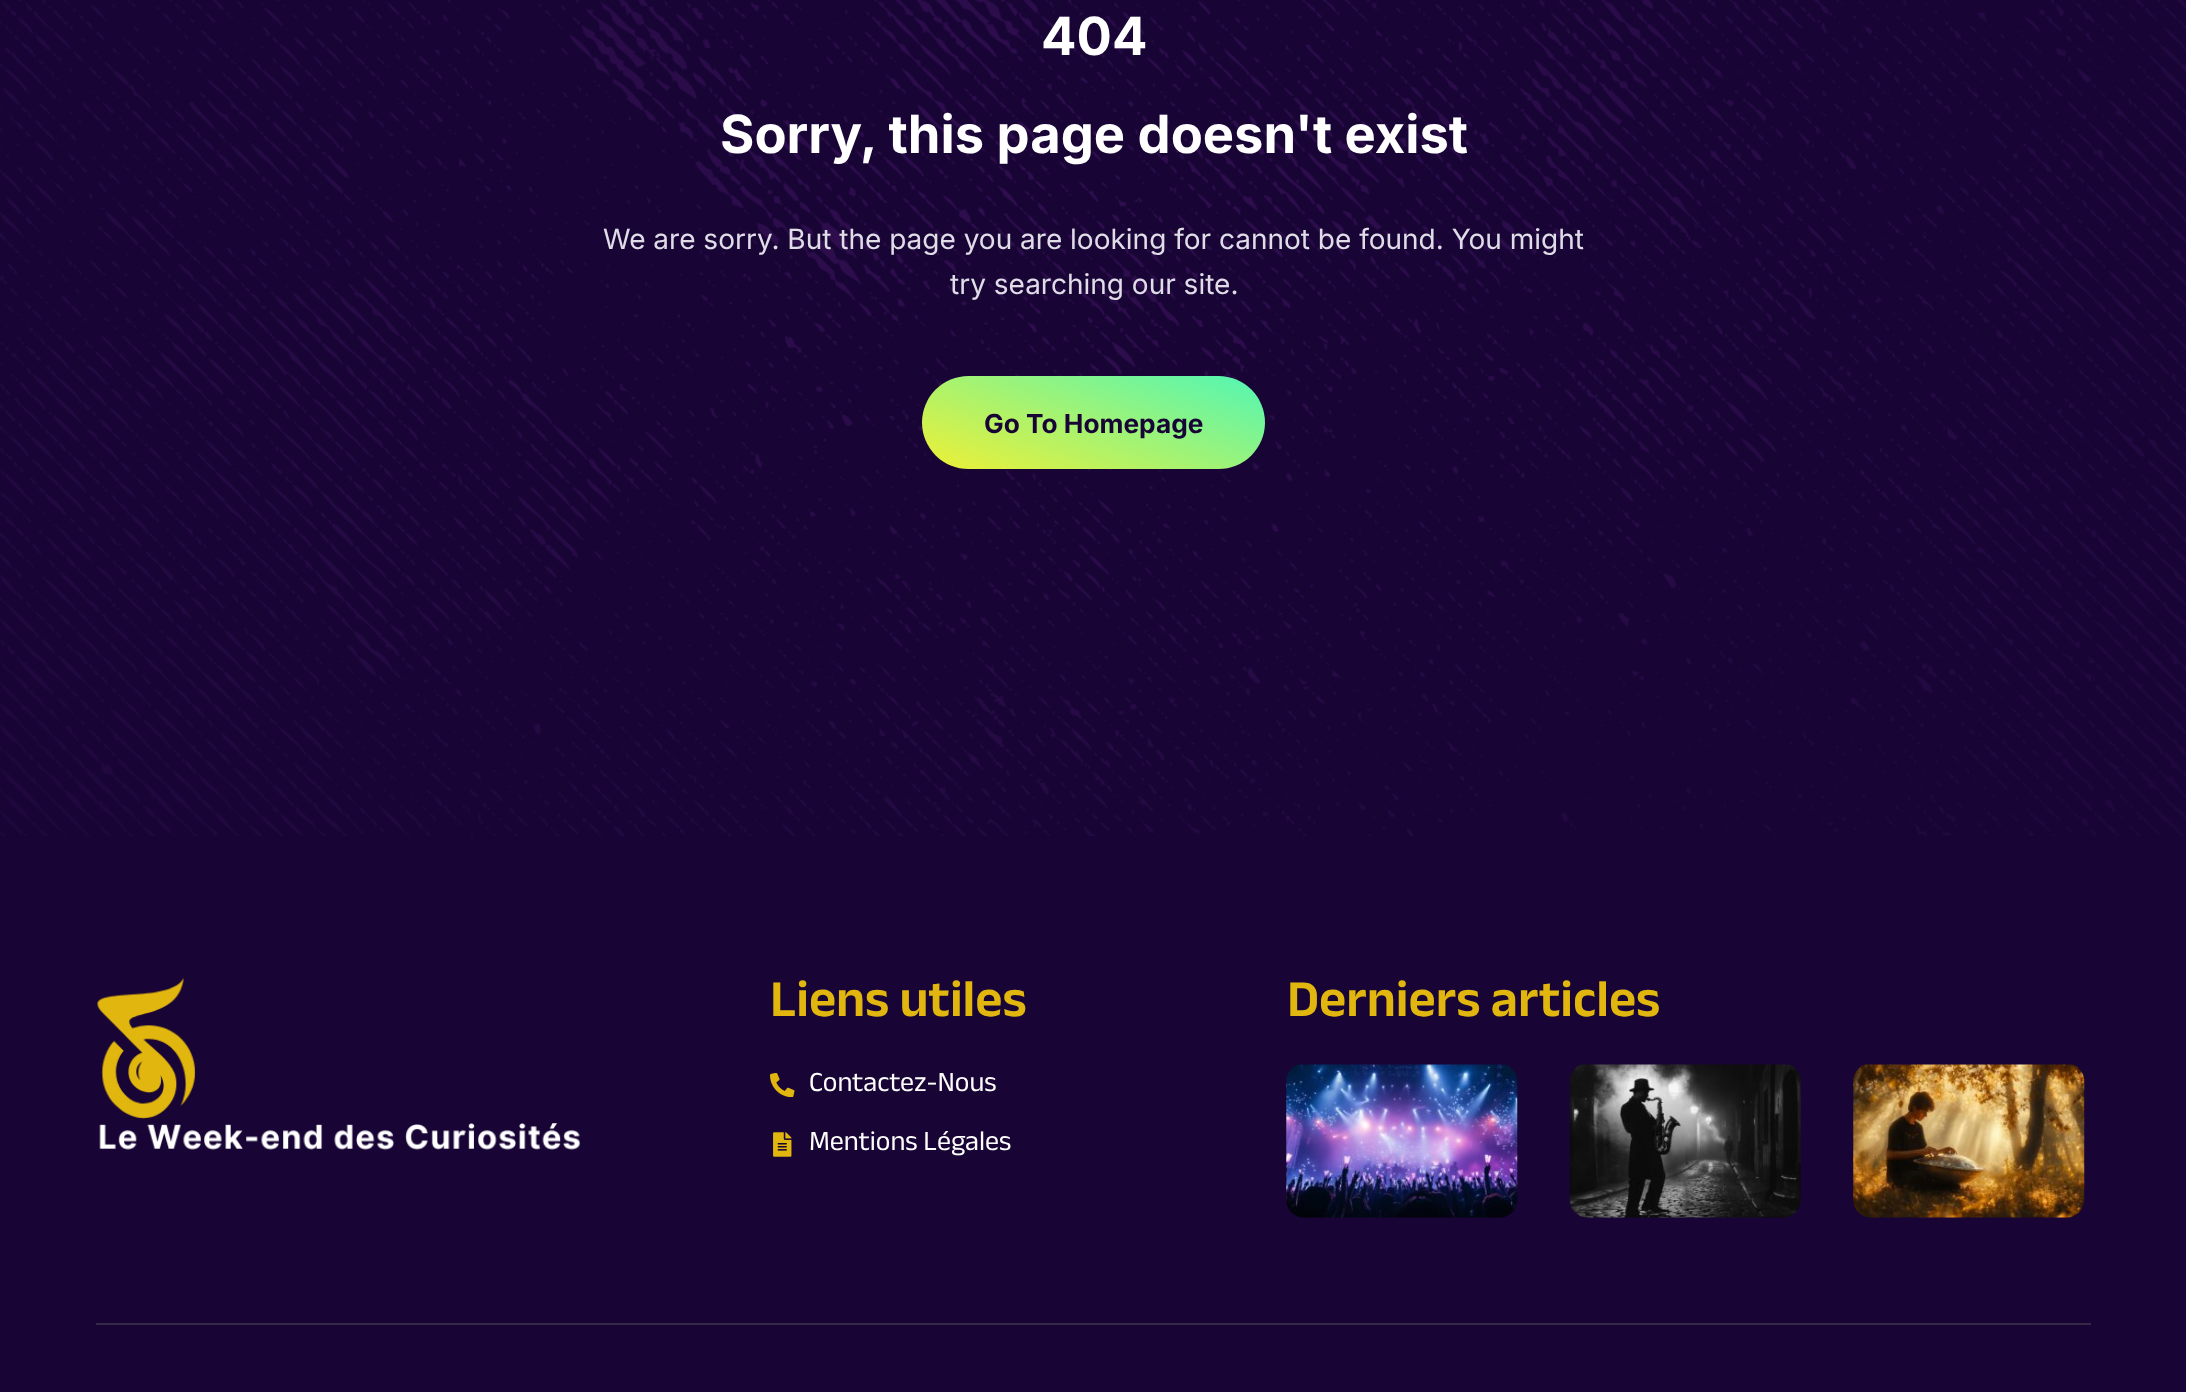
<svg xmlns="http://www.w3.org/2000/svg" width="2186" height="1392">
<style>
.a{font:bold 52.5px Inter;fill:#fff}
.b{font:28px Inter;fill:#e0dde9}
.c{font:bold 26.25px Inter;fill:#180535}
.d{font:600 52.5px Anek Gujarati;fill:#e1b60f}
.e{font:28px Anek Gujarati;fill:#fff}
</style>
<defs>
<radialGradient id="g1" gradientUnits="userSpaceOnUse" cx="0" cy="0" r="1" gradientTransform="matrix(1547 0 0 898 1094 201)"><stop offset="0" stop-color="#180535" stop-opacity="0.87"/><stop offset="1" stop-color="#180535" stop-opacity="0.96"/></radialGradient>
<linearGradient id="g2" gradientUnits="userSpaceOnUse" x1="1129" y1="327" x2="1059" y2="519"><stop offset="0" stop-color="#52f6b5"/><stop offset="1" stop-color="#eff035"/></linearGradient>
</defs>
<rect width="100%" height="100%" fill="#180535"/>
<image href="1.png" x="0" y="0" width="2186" height="836"/>
<path fill="url(#g1)" d="M0 0h2186v836H0z"/>
<rect fill="url(#g2)" x="922" y="376" width="343" height="93" rx="46.5"/>
<image href="2.png" x="97" y="978" width="483" height="172"/>
<image href="3.png" x="770" y="1073" width="25" height="24"/>
<image href="4.png" x="773" y="1132" width="19" height="25"/>
<image href="5.png" x="1286" y="1064" width="232" height="154"/>
<image href="6.png" x="1569" y="1064" width="232" height="154"/>
<image href="7.png" x="1853" y="1064" width="232" height="154"/>
<path fill="#362948" d="M96 1323h1995v2H96z"/>
<text class="a" x="1041" y="55">404</text>
<text class="a" x="720" y="153">Sorry, this page doesn't exist</text>
<text class="b" x="603" y="249">We are sorry. But the page you are looking for cannot be found. You might</text>
<text class="b" x="950" y="294">try searching our site.</text>
<text class="c" x="984" y="433">Go To Homepage</text>
<text class="d" x="770" y="1016">Liens utiles</text>
<text class="e" x="809" y="1091">Contactez-Nous</text>
<text class="e" x="809" y="1150">Mentions Légales</text>
<text class="d" x="1287" y="1016">Derniers articles</text>
</svg>
